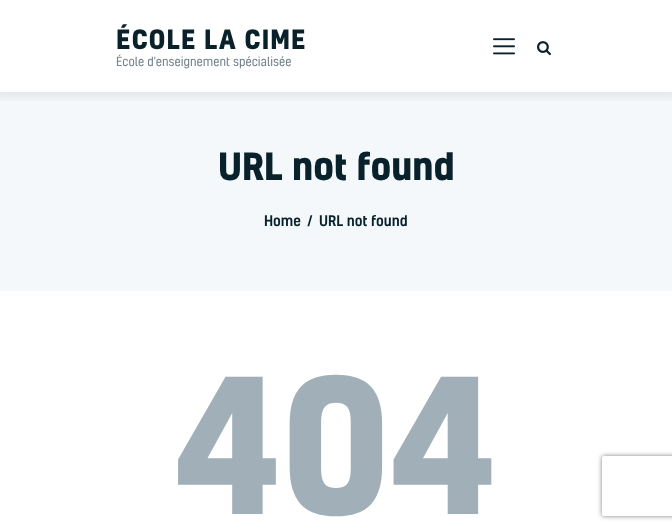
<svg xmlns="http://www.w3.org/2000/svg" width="672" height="530">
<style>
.a{font:bold 25.5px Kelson;letter-spacing:1px;fill:#09212b}
.b{font:12px Kelson;fill:#76848c}
.c{font:bold 36px Kelson;fill:#09212b}
.d{font:500 14px Kelson;fill:#09212b}
.e{font:bold 180px Kelson;fill:#a1b0b8}
</style>
<defs>
<clipPath id="clip1"><path d="M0 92h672v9H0z"/></clipPath>
<clipPath id="clip2"><path d="M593 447h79v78h-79zm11 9h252c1 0 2 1 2 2v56c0 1-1 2-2 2h-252c-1 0-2-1-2-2v-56c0-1 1-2 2-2z" clip-rule="evenodd"/></clipPath>
</defs>
<rect width="100%" height="100%" fill="#fff"/>
<path fill="#f4f8fa" d="M0 92h672v199H0z"/>
<g clip-path="url(#clip1)">
<path fill="#0000001a" filter="blur(8px)" d="M-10 2h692v92H-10z"/>
</g>
<image href="1.png" x="493" y="38" width="22" height="17"/>
<image href="2.png" x="537" y="41" width="14" height="15"/>
<g clip-path="url(#clip2)">
<rect fill="#808080" filter="blur(2.5px)" x="602" y="456" width="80" height="60" rx="2"/>
</g>
<text class="a" x="116" y="49">ÉCOLE LA CIME</text>
<text class="b" x="116" y="66">École d'enseignement spécialisée</text>
<text class="c" x="218" y="180">URL not found</text>
<text class="d" x="264" y="226">Home</text>
<text class="d" x="307" y="226">/</text>
<text class="d" x="319" y="226">URL not found</text>
<text class="e" x="175" y="514">404</text>
</svg>
